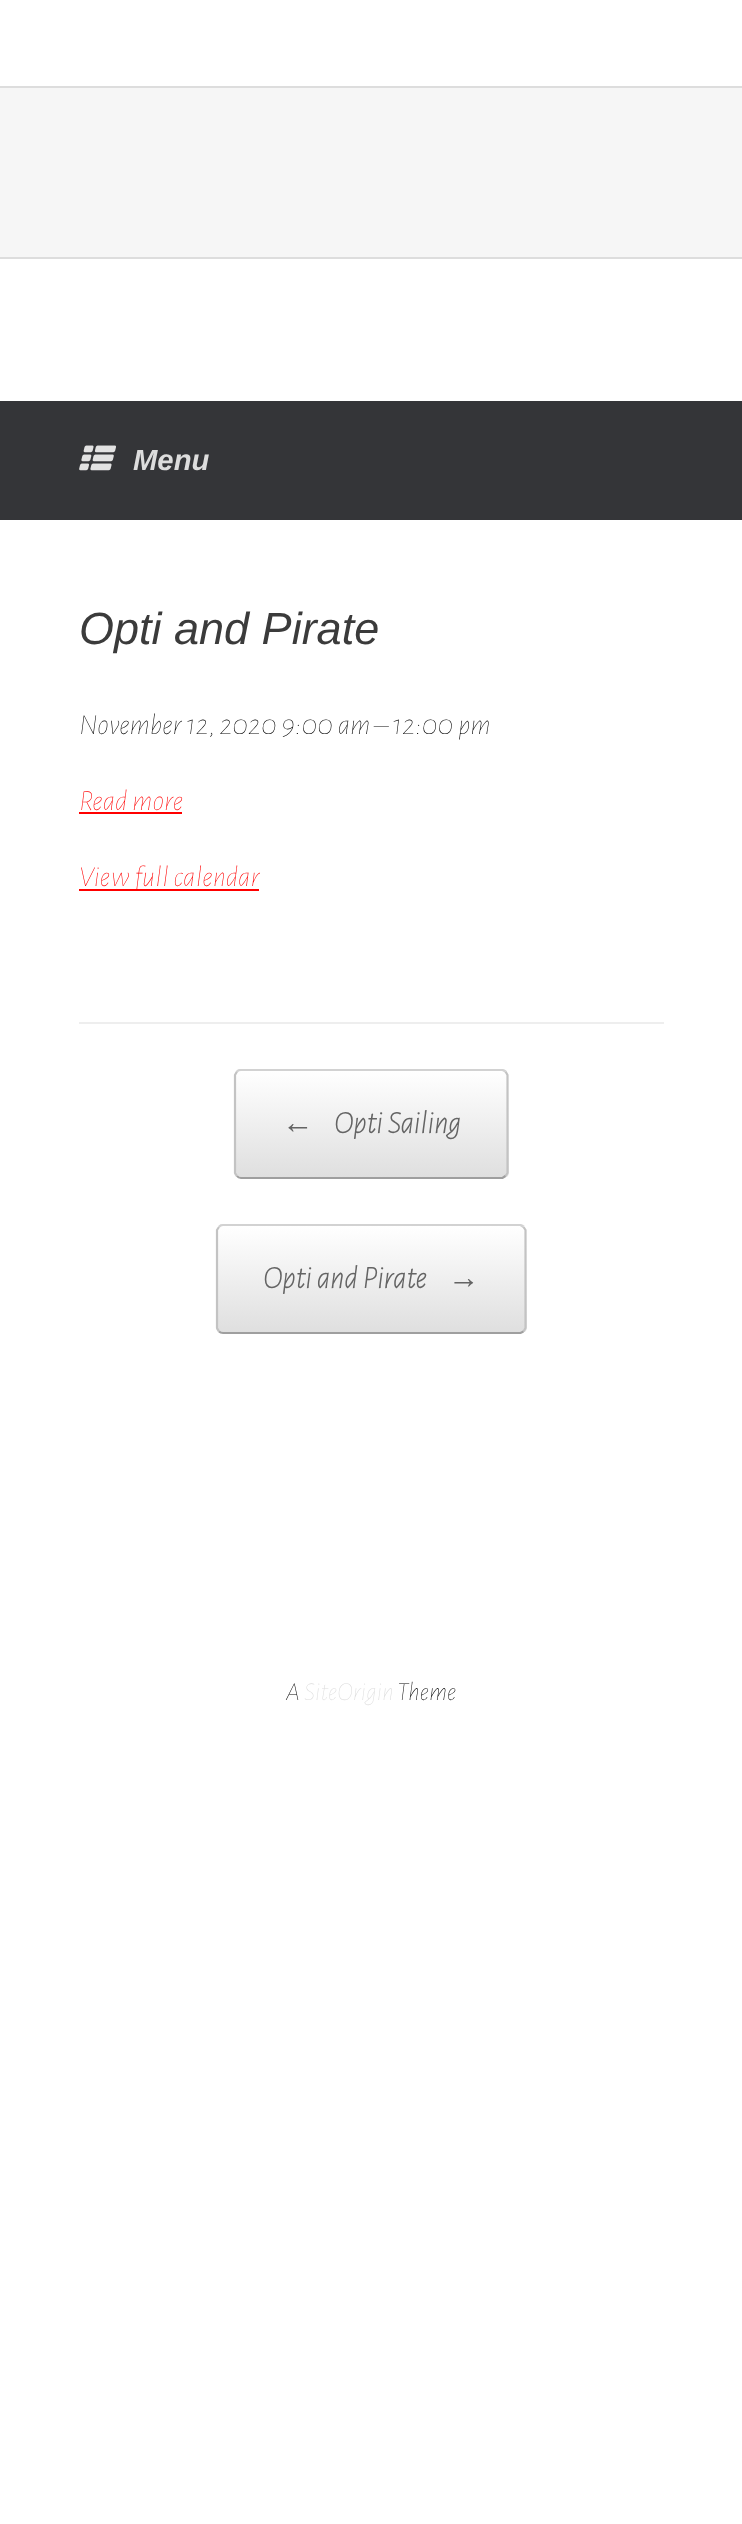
<svg xmlns="http://www.w3.org/2000/svg" width="742" height="2524">
<style>
.a{font:italic bold 29.25px Liberation Sans;fill:#ddd}
.b{font:italic 45px Liberation Sans;fill:#3b3b3b}
.c{font:italic 100 29.25px Alegreya Sans;fill:#000}
.d{font:italic 100 29.25px Alegreya Sans;fill:#f00}
.e{font:italic bold 31.5px Liberation Serif;fill:#646464}
.f{font:italic bold 31.5px Alegreya Sans;fill:#646464}
.g{font:italic 100 26px Alegreya Sans;fill:#000}
.h{font:italic 100 26px Alegreya Sans;fill:#ddd}
</style>
<defs>
<clipPath id="clip1"><rect x="234" y="1069" width="275" height="110" rx="7"/></clipPath>
<linearGradient id="g1" gradientUnits="userSpaceOnUse" x1="236" y1="1071" x2="236" y2="965"><stop offset="0" stop-color="#dfdfdf"/><stop offset="1" stop-color="#fff"/></linearGradient>
<linearGradient id="g2" gradientUnits="userSpaceOnUse" x1="236" y1="1177" x2="236" y2="1071"><stop offset="0" stop-color="#dfdfdf"/><stop offset="1" stop-color="#fff"/></linearGradient>
<clipPath id="clip2"><path d="M79 1069h585v310H79z"/></clipPath>
<clipPath id="clip3"><rect x="216" y="1224" width="311" height="110" rx="7"/></clipPath>
<linearGradient id="g3" gradientUnits="userSpaceOnUse" x1="218" y1="1226" x2="218" y2="1121"><stop offset="0" stop-color="#dfdfdf"/><stop offset="1" stop-color="#fff"/></linearGradient>
<linearGradient id="g4" gradientUnits="userSpaceOnUse" x1="218" y1="1332" x2="218" y2="1226"><stop offset="0" stop-color="#dfdfdf"/><stop offset="1" stop-color="#fff"/></linearGradient>
</defs>
<rect width="100%" height="100%" fill="#fff"/>
<path fill="#f6f6f6" d="M0 88h742v169H0z"/>
<path fill="#ddd" d="M0 86h742v2H0z"/>
<path fill="#ddd" d="M0 257h742v2H0z"/>
<path fill="#343538" d="M0 401h742v119H0z"/>
<image href="1.png" x="79" y="445" width="37" height="26"/>
<path fill="#eee" d="M79 1022h585v2H79z"/>
<path fill="#f00" d="M79 812h103v2H79z"/>
<path fill="#f00" d="M79 889h180v2H79z"/>
<g clip-path="url(#clip1)">
<path fill="url(#g1)" d="M234 1069h275v2H234z"/>
<path fill="url(#g2)" d="M234 1071h275v106H234z"/>
</g>
<g clip-path="url(#clip2)">
<path fill="none" stroke="#d2d2d2" stroke-width="2.2" d="M237 1071.5c1-1 2.5-1.5 4-1.5h261.5l3 1.5"/>
</g>
<path fill="none" stroke="#c3c3c3" stroke-width="2.2" d="M505.5 1071.5l2 3.5v98l-2 3"/>
<path fill="none" stroke="#9f9f9f" stroke-width="2.2" d="M505.5 1176l-3 2h-261.5c-1.5 0-3-.5-4-2"/>
<path fill="none" stroke="#c3c3c3" stroke-width="2.2" d="M237 1176l-2-3v-98l2-3.5"/>
<g clip-path="url(#clip3)">
<path fill="url(#g3)" d="M216 1224h311v2H216z"/>
<path fill="url(#g4)" d="M216 1226h311v106H216z"/>
</g>
<path fill="none" stroke="#d2d2d2" stroke-width="2.2" d="M219 1227c1-1.5 2.5-2 4-2h297.5l3 2"/>
<path fill="none" stroke="#c3c3c3" stroke-width="2.2" d="M523.5 1227l2 3v98l-2 3.5"/>
<path fill="none" stroke="#9f9f9f" stroke-width="2.2" d="M523.5 1331.5l-3 1.5h-297.5c-1.5 0-3-.5-4-1.5"/>
<path fill="none" stroke="#c3c3c3" stroke-width="2.2" d="M219 1331.5l-2-3.5v-98l2-3"/>
<text class="a" x="133" y="470">Menu</text>
<text class="b" x="79" y="644">Opti and Pirate</text>
<text class="c" x="79" y="734">November 12, 2020 9:00 am</text>
<text class="c" x="374" y="734">– 12:00 pm</text>
<text class="d" x="79" y="810">Read more</text>
<text class="d" x="79" y="886">View full calendar</text>
<text class="e" x="282" y="1133">←</text>
<text class="f" x="334" y="1133">Opti Sailing</text>
<text class="f" x="263" y="1288">Opti and Pirate</text>
<text class="e" x="448" y="1288">→</text>
<text class="g" x="286" y="1700">A</text>
<text class="h" x="304" y="1700">SiteOrigin</text>
<text class="g" x="397" y="1700">Theme</text>
</svg>
